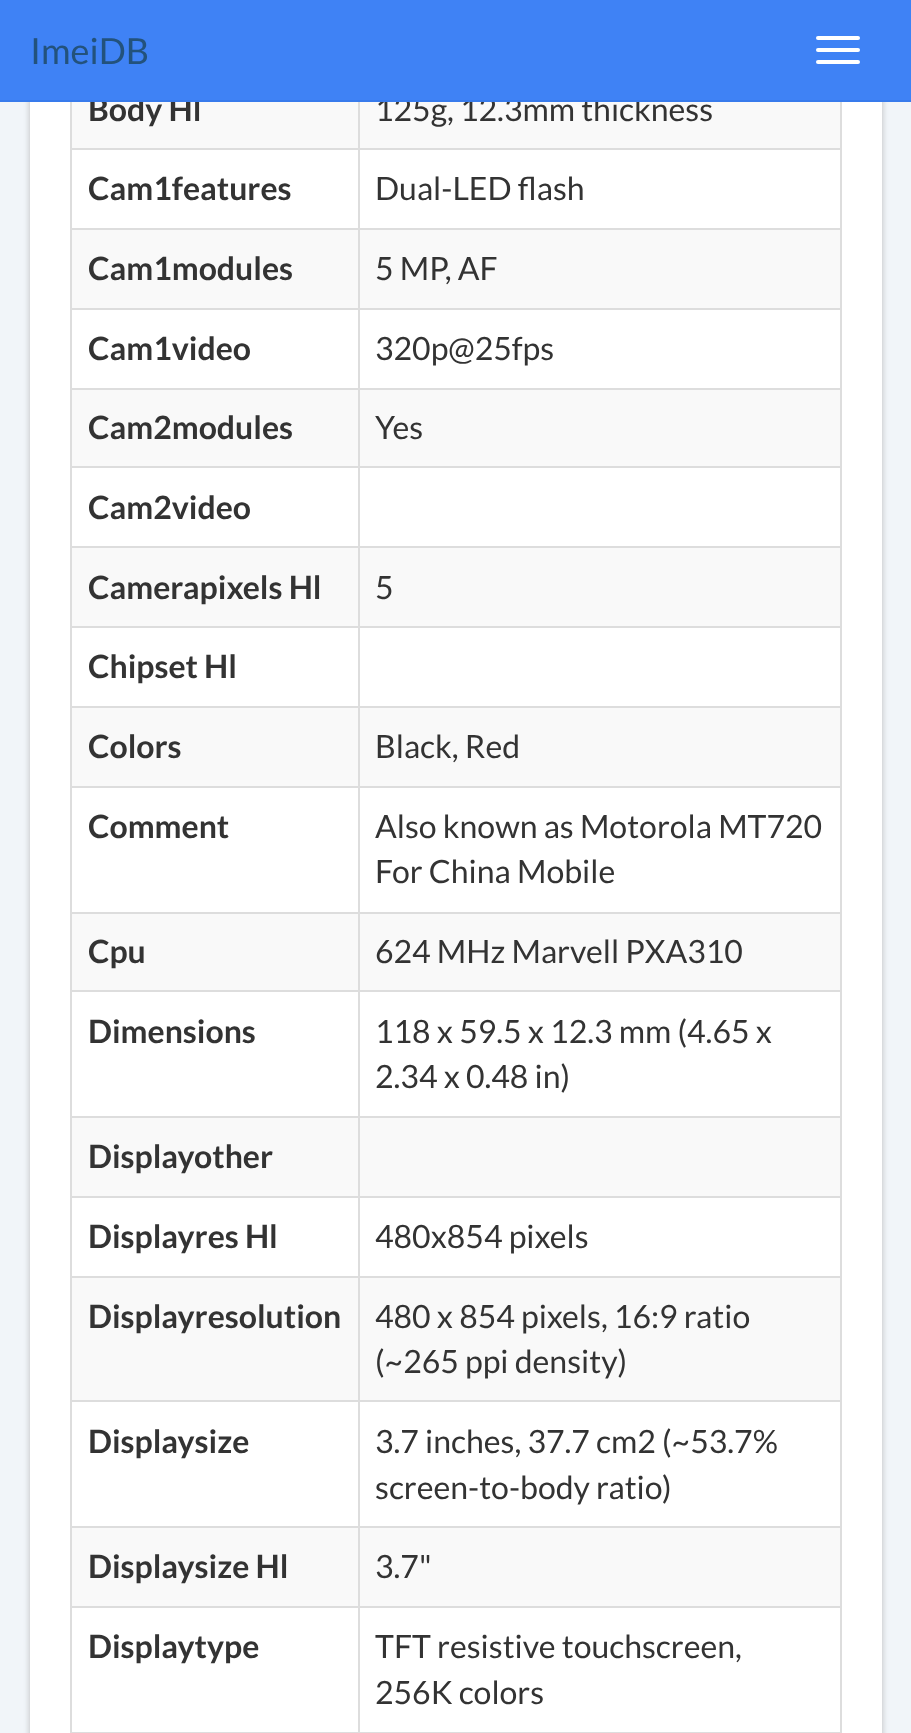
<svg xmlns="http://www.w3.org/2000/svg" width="911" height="1733">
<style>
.a{font:bold 32px Lato;fill:#333}
.b{font:32px Lato;fill:#333}
.c{font:36px Lato;fill:#23527c}
</style>
<rect width="100%" height="100%" fill="#f1f5f9"/>
<rect fill="#adadadcf" filter="blur(3px)" x="30" y="-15" width="852" height="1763" rx="6"/>
<path fill="#fff" d="M30 102h852v1631H30z"/>
<path fill="#ddd" d="M840 102h2v1631H840z"/>
<path fill="#ddd" d="M70 102h2v1631H70z"/>
<path fill="#f9f9f9" d="M72 102h768v46H72z"/>
<path fill="#ddd" d="M358 148h484v2H358z"/>
<path fill="#ddd" d="M358 228h484v2H358z"/>
<path fill="#f9f9f9" d="M72 230h768v78H72z"/>
<path fill="#ddd" d="M358 308h484v2H358z"/>
<path fill="#ddd" d="M358 388h484v2H358z"/>
<path fill="#f9f9f9" d="M72 390h768v76H72z"/>
<path fill="#ddd" d="M358 466h484v2H358z"/>
<path fill="#ddd" d="M358 546h484v2H358z"/>
<path fill="#f9f9f9" d="M72 548h768v78H72z"/>
<path fill="#ddd" d="M358 626h484v2H358z"/>
<path fill="#ddd" d="M358 706h484v2H358z"/>
<path fill="#f9f9f9" d="M72 708h768v78H72z"/>
<path fill="#ddd" d="M358 786h484v2H358z"/>
<path fill="#ddd" d="M358 912h484v2H358z"/>
<path fill="#f9f9f9" d="M72 914h768v76H72z"/>
<path fill="#ddd" d="M358 990h484v2H358z"/>
<path fill="#ddd" d="M358 1116h484v2H358z"/>
<path fill="#f9f9f9" d="M72 1118h768v78H72z"/>
<path fill="#ddd" d="M358 1196h484v2H358z"/>
<path fill="#ddd" d="M358 1276h484v2H358z"/>
<path fill="#f9f9f9" d="M72 1278h768v122H72z"/>
<path fill="#ddd" d="M358 1400h484v2H358z"/>
<path fill="#ddd" d="M358 1526h484v2H358z"/>
<path fill="#f9f9f9" d="M72 1528h768v78H72z"/>
<path fill="#ddd" d="M358 1606h484v2H358z"/>
<path fill="#ddd" d="M70 1732h772v1H70z"/>
<path fill="#ddd" d="M358 1606h2v127H358z"/>
<path fill="#ddd" d="M70 1606h290v2H70z"/>
<path fill="#ddd" d="M358 1526h2v82H358z"/>
<path fill="#ddd" d="M70 1526h290v2H70z"/>
<path fill="#ddd" d="M358 1400h2v128H358z"/>
<path fill="#ddd" d="M70 1400h290v2H70z"/>
<path fill="#ddd" d="M358 1276h2v126H358z"/>
<path fill="#ddd" d="M70 1276h290v2H70z"/>
<path fill="#ddd" d="M358 1196h2v82H358z"/>
<path fill="#ddd" d="M70 1196h290v2H70z"/>
<path fill="#ddd" d="M358 1116h2v82H358z"/>
<path fill="#ddd" d="M70 1116h290v2H70z"/>
<path fill="#ddd" d="M358 990h2v128H358z"/>
<path fill="#ddd" d="M70 990h290v2H70z"/>
<path fill="#ddd" d="M358 912h2v80H358z"/>
<path fill="#ddd" d="M70 912h290v2H70z"/>
<path fill="#ddd" d="M358 786h2v128H358z"/>
<path fill="#ddd" d="M70 786h290v2H70z"/>
<path fill="#ddd" d="M358 706h2v82H358z"/>
<path fill="#ddd" d="M70 706h290v2H70z"/>
<path fill="#ddd" d="M358 626h2v82H358z"/>
<path fill="#ddd" d="M70 626h290v2H70z"/>
<path fill="#ddd" d="M358 546h2v82H358z"/>
<path fill="#ddd" d="M70 546h290v2H70z"/>
<path fill="#ddd" d="M358 466h2v82H358z"/>
<path fill="#ddd" d="M70 466h290v2H70z"/>
<path fill="#ddd" d="M358 388h2v80H358z"/>
<path fill="#ddd" d="M70 388h290v2H70z"/>
<path fill="#ddd" d="M358 308h2v82H358z"/>
<path fill="#ddd" d="M70 308h290v2H70z"/>
<path fill="#ddd" d="M358 228h2v82H358z"/>
<path fill="#ddd" d="M70 228h290v2H70z"/>
<path fill="#ddd" d="M358 148h2v82H358z"/>
<path fill="#ddd" d="M70 148h290v2H70z"/>
<path fill="#ddd" d="M358 102h2v48H358z"/>
<text class="a" x="88" y="121">Body Hl</text>
<text class="b" x="375" y="121">125g, 12.3mm thickness</text>
<path fill="#3f82f5" d="M0 0h911v100H0z"/>
<rect fill="#fff" x="816" y="60" width="44" height="4" rx="2"/>
<rect fill="#fff" x="816" y="48" width="44" height="4" rx="2"/>
<rect fill="#fff" x="816" y="36" width="44" height="4" rx="2"/>
<text class="c" x="30" y="64">ImeiDB</text>
<path fill="#387bec" d="M0 100h911v2H0z"/>
<text class="a" x="88" y="200">Cam1features</text>
<text class="b" x="375" y="200">Dual-LED flash</text>
<text class="a" x="88" y="280">Cam1modules</text>
<text class="b" x="375" y="280">5 MP, AF</text>
<text class="a" x="88" y="360">Cam1video</text>
<text class="b" x="375" y="360">320p@25fps</text>
<text class="a" x="88" y="439">Cam2modules</text>
<text class="b" x="375" y="439">Yes</text>
<text class="a" x="88" y="519">Cam2video</text>
<text class="a" x="88" y="599">Camerapixels Hl</text>
<text class="b" x="375" y="599">5</text>
<text class="a" x="88" y="678">Chipset Hl</text>
<text class="a" x="88" y="758">Colors</text>
<text class="b" x="375" y="758">Black, Red</text>
<text class="a" x="88" y="838">Comment</text>
<text class="b" x="375" y="838">Also known as Motorola MT720</text>
<text class="b" x="375" y="883">For China Mobile</text>
<text class="a" x="88" y="963">Cpu</text>
<text class="b" x="375" y="963">624 MHz Marvell PXA310</text>
<text class="a" x="88" y="1043">Dimensions</text>
<text class="b" x="375" y="1043">118 x 59.5 x 12.3 mm (4.65 x</text>
<text class="b" x="375" y="1088">2.34 x 0.48 in)</text>
<text class="a" x="88" y="1168">Displayother</text>
<text class="a" x="88" y="1248">Displayres Hl</text>
<text class="b" x="375" y="1248">480x854 pixels</text>
<text class="a" x="88" y="1328">Displayresolution</text>
<text class="b" x="375" y="1328">480 x 854 pixels, 16:9 ratio</text>
<text class="b" x="375" y="1373">(~265 ppi density)</text>
<text class="a" x="88" y="1453">Displaysize</text>
<text class="b" x="375" y="1453">3.7 inches, 37.7 cm2 (~53.7%</text>
<text class="b" x="375" y="1499">screen-to-body ratio)</text>
<text class="a" x="88" y="1578">Displaysize Hl</text>
<text class="b" x="375" y="1578">3.7"</text>
<text class="a" x="88" y="1658">Displaytype</text>
<text class="b" x="375" y="1658">TFT resistive touchscreen,</text>
<text class="b" x="375" y="1704">256K colors</text>
</svg>
